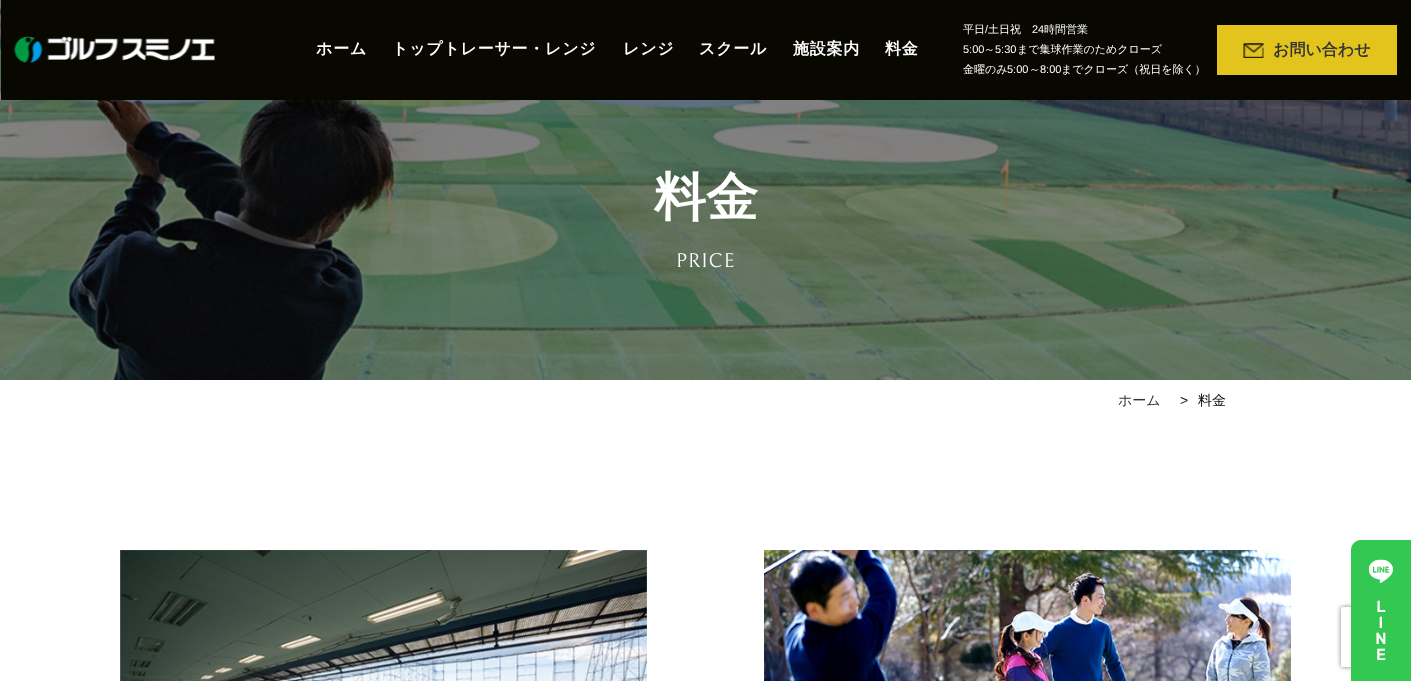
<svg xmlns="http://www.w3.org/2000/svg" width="1411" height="681">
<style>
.a{font:bold 16px WenQuanYi Zen Hei;letter-spacing:0.75px;fill:#fff}
.b{font:500 11px WenQuanYi Zen Hei;fill:#fff}
.c{font:11px Liberation Sans;fill:#fff}
.d{font:bold 16px WenQuanYi Zen Hei;fill:#333}
.e{font:bold 52px WenQuanYi Zen Hei;fill:#fff}
.f{font:20px Bellefair;letter-spacing:1px;fill:#fff}
.g{font:500 14px WenQuanYi Zen Hei;fill:#333}
.h{font:14px Liberation Sans;fill:#111}
.i{font:500 14px WenQuanYi Zen Hei;fill:#111}
</style>
<defs>
<clipPath id="clip1"><path d="M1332 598h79v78h-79zm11 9h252c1 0 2 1 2 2v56c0 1-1 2-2 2h-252c-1 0-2-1-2-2v-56c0-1 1-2 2-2z" clip-rule="evenodd"/></clipPath>
</defs>
<rect width="100%" height="100%" fill="#fff"/>
<image href="3.png" x="0" y="0" width="1411" height="380"/>
<path fill="#080700" d="M1 0h1410v100H1z"/>
<image href="1.png" x="14" y="36" width="201" height="27"/>
<path fill="#e2c41c" d="M1217 25h180v50H1217z"/>
<image href="2.png" x="1243" y="43" width="21" height="15"/>
<image href="4.png" x="120" y="550" width="527" height="131"/>
<image href="5.png" x="764" y="550" width="527" height="131"/>
<g clip-path="url(#clip1)">
<rect fill="#808080" filter="blur(2.5px)" x="1341" y="607" width="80" height="60" rx="2"/>
</g>
<image href="6.png" x="1351" y="540" width="60" height="141"/>
<text class="a" x="316" y="54">ホーム</text>
<text class="a" x="392" y="54">トップトレーサー・レンジ</text>
<text class="a" x="623" y="54">レンジ</text>
<text class="a" x="699" y="54">スクール</text>
<text class="a" x="793" y="54">施設案内</text>
<text class="a" x="885" y="54">料金</text>
<text class="b" x="963" y="33">平日</text>
<text class="c" x="985" y="33">/</text>
<text class="b" x="988" y="33">土日祝</text>
<text class="c" x="1032" y="33">24</text>
<text class="b" x="1044" y="33">時間営業</text>
<text class="c" x="963" y="53">5:00</text>
<text class="b" x="984" y="53">～</text>
<text class="c" x="995" y="53">5:30</text>
<text class="b" x="1017" y="53">まで集球作業のためクローズ</text>
<text class="b" x="963" y="73">金曜のみ</text>
<text class="c" x="1007" y="73">5:00</text>
<text class="b" x="1029" y="73">～</text>
<text class="c" x="1040" y="73">8:00</text>
<text class="b" x="1061" y="73">までクローズ（祝日を除く）</text>
<text class="d" x="1273" y="55">お問い合わせ</text>
<text class="e" x="654" y="215">料金</text>
<text class="f" x="676" y="267">PRICE</text>
<text class="g" x="1118" y="405">ホーム</text>
<text class="h" x="1180" y="405">&gt;</text>
<text class="i" x="1198" y="405">料金</text>
</svg>
